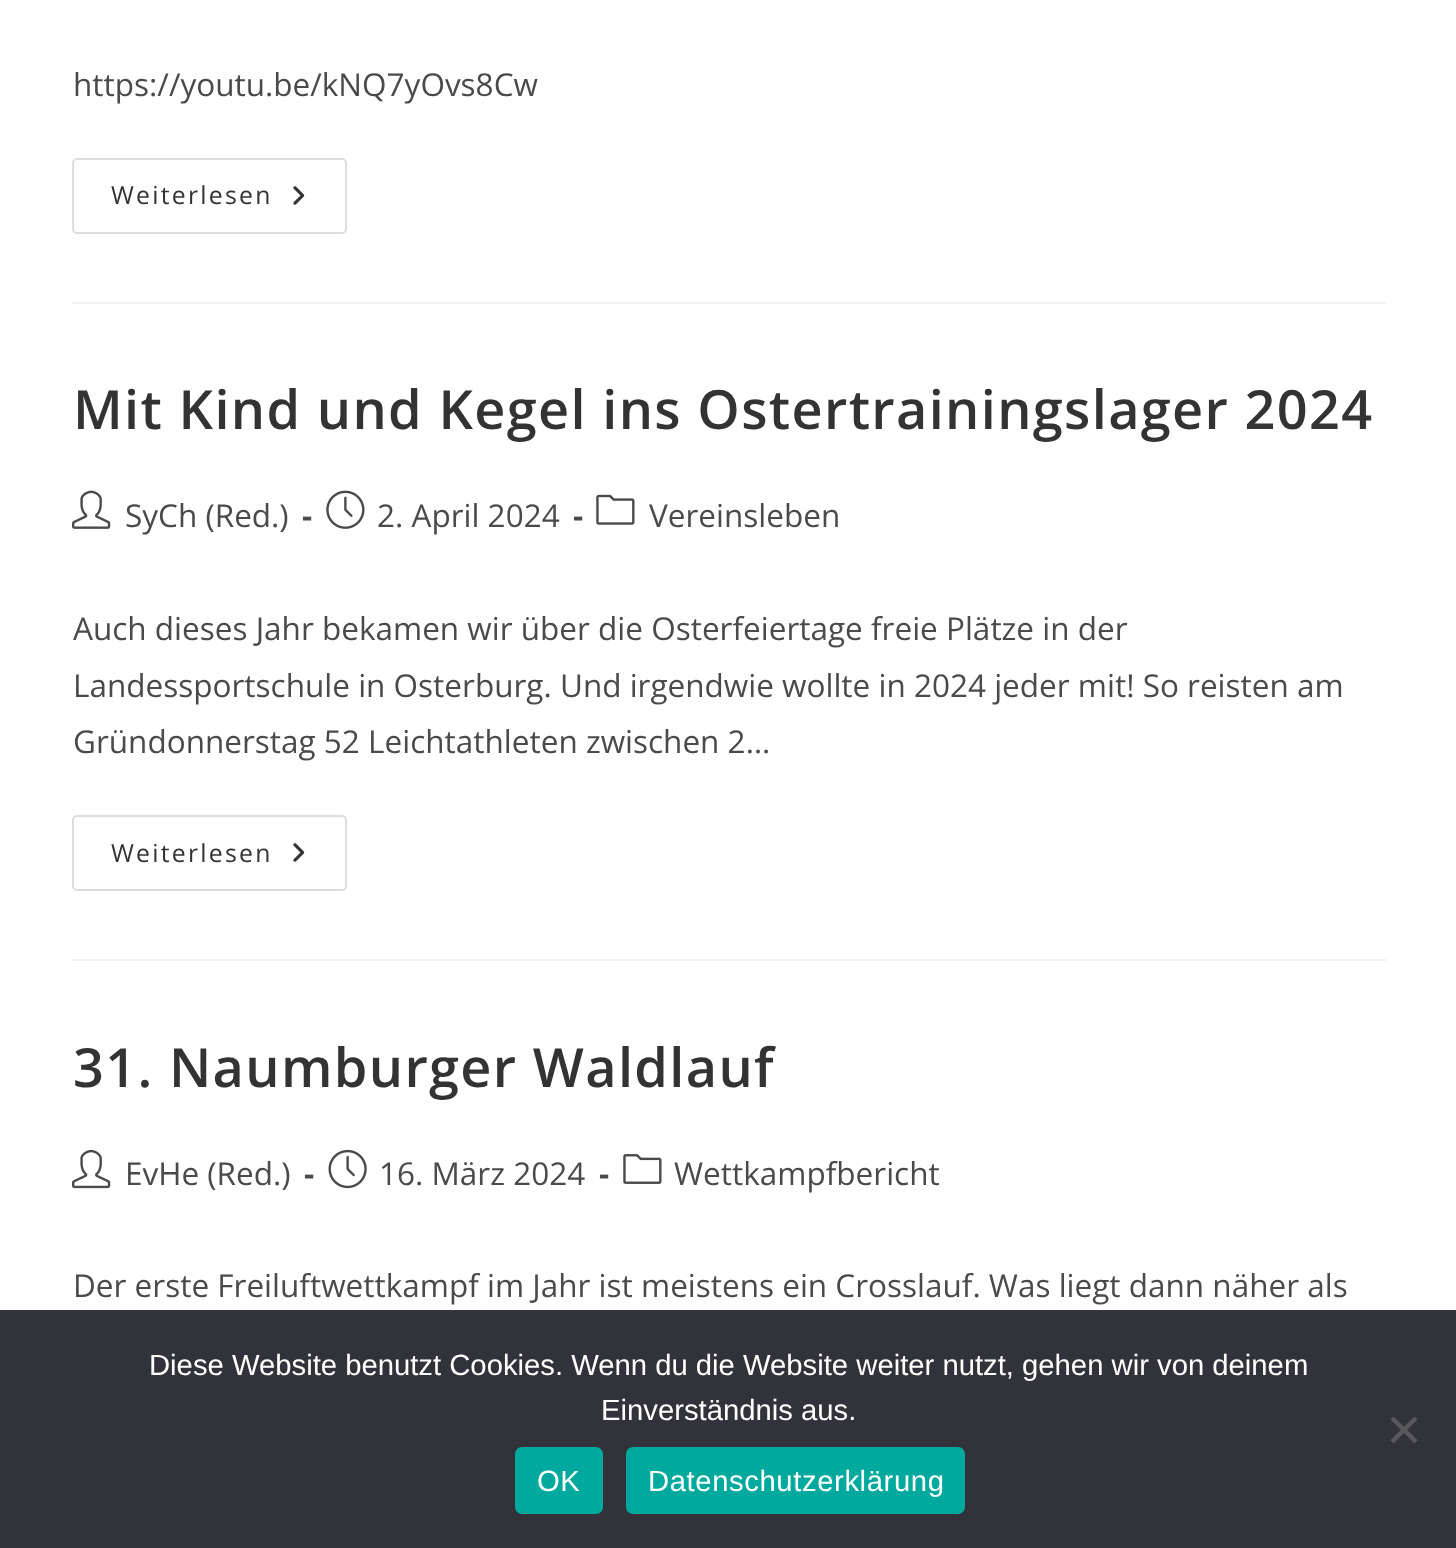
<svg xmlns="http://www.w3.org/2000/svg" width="1456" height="1548">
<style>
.a{font:31.5px Open Sans;fill:#4a4a4a}
.b{font:24.75px Open Sans;letter-spacing:2.25px;fill:#333}
.c{font:600 54px Open Sans;letter-spacing:1.35px;fill:#333}
.d{font:bold 31.5px Open Sans;fill:#4a4a4a}
.e{font:29.25px Liberation Sans;fill:#fff}
.f{font:29.25px Liberation Sans;letter-spacing:0.6px;fill:#fff}
</style>
<rect width="100%" height="100%" fill="#fff"/>
<path fill="#f1f1f1" d="M72 302h1314v2H72z"/>
<rect fill="none" stroke="#ddd" stroke-width="2" x="73" y="159" width="273" height="74" rx="4"/>
<image href="1.png" x="293" y="186" width="12" height="19"/>
<path fill="#f1f1f1" d="M72 959h1314v2H72z"/>
<image href="2.png" x="72" y="490" width="39" height="39"/>
<image href="3.png" x="326" y="490" width="39" height="39"/>
<image href="4.png" x="596" y="494" width="39" height="31"/>
<rect fill="none" stroke="#ddd" stroke-width="2" x="73" y="816" width="273" height="74" rx="4"/>
<image href="1.png" x="293" y="843" width="12" height="19"/>
<image href="5.png" x="72" y="1149" width="39" height="40"/>
<image href="6.png" x="328" y="1149" width="39" height="40"/>
<image href="7.png" x="623" y="1154" width="39" height="30"/>
<path fill="#32323a" d="M0 1310h1456v238H0z"/>
<path fill="#59595d" d="M1414.5 1416.5l3 3l-24 24l-3-3.5z"/>
<path fill="#59595d" d="M1390.5 1419.5l3-3l24 23.5l-3 3.5z"/>
<rect fill="#00a99d" x="515" y="1447" width="88" height="67" rx="7"/>
<rect fill="#00a99d" x="626" y="1447" width="339" height="67" rx="7"/>
<text class="a" x="73" y="96">https://youtu.be/kNQ7yOvs8Cw</text>
<text class="b" x="111" y="204">Weiterlesen</text>
<text class="c" x="73" y="429">Mit Kind und Kegel ins Ostertrainingslager 2024</text>
<text class="a" x="125" y="527">SyCh (Red.)</text>
<text class="d" x="302" y="527">-</text>
<text class="a" x="377" y="527">2. April 2024</text>
<text class="d" x="573" y="527">-</text>
<text class="a" x="649" y="527">Vereinsleben</text>
<text class="a" x="73" y="640">Auch dieses Jahr bekamen wir über die Osterfeiertage freie Plätze in der</text>
<text class="a" x="73" y="697">Landessportschule in Osterburg. Und irgendwie wollte in 2024 jeder mit! So reisten am</text>
<text class="a" x="73" y="753">Gründonnerstag 52 Leichtathleten zwischen 2…</text>
<text class="b" x="111" y="862">Weiterlesen</text>
<text class="c" x="73" y="1087">31. Naumburger Waldlauf</text>
<text class="a" x="125" y="1185">EvHe (Red.)</text>
<text class="d" x="304" y="1185">-</text>
<text class="a" x="379" y="1185">16. März 2024</text>
<text class="d" x="599" y="1185">-</text>
<text class="a" x="674" y="1185">Wettkampfbericht</text>
<text class="a" x="73" y="1297">Der erste Freiluftwettkampf im Jahr ist meistens ein Crosslauf. Was liegt dann näher als</text>
<text class="e" x="149" y="1375">Diese Website benutzt Cookies. Wenn du die Website weiter nutzt, gehen wir von deinem</text>
<text class="e" x="601" y="1420">Einverständnis aus.</text>
<text class="f" x="537" y="1491">OK</text>
<text class="f" x="648" y="1491">Datenschutzerklärung</text>
</svg>
